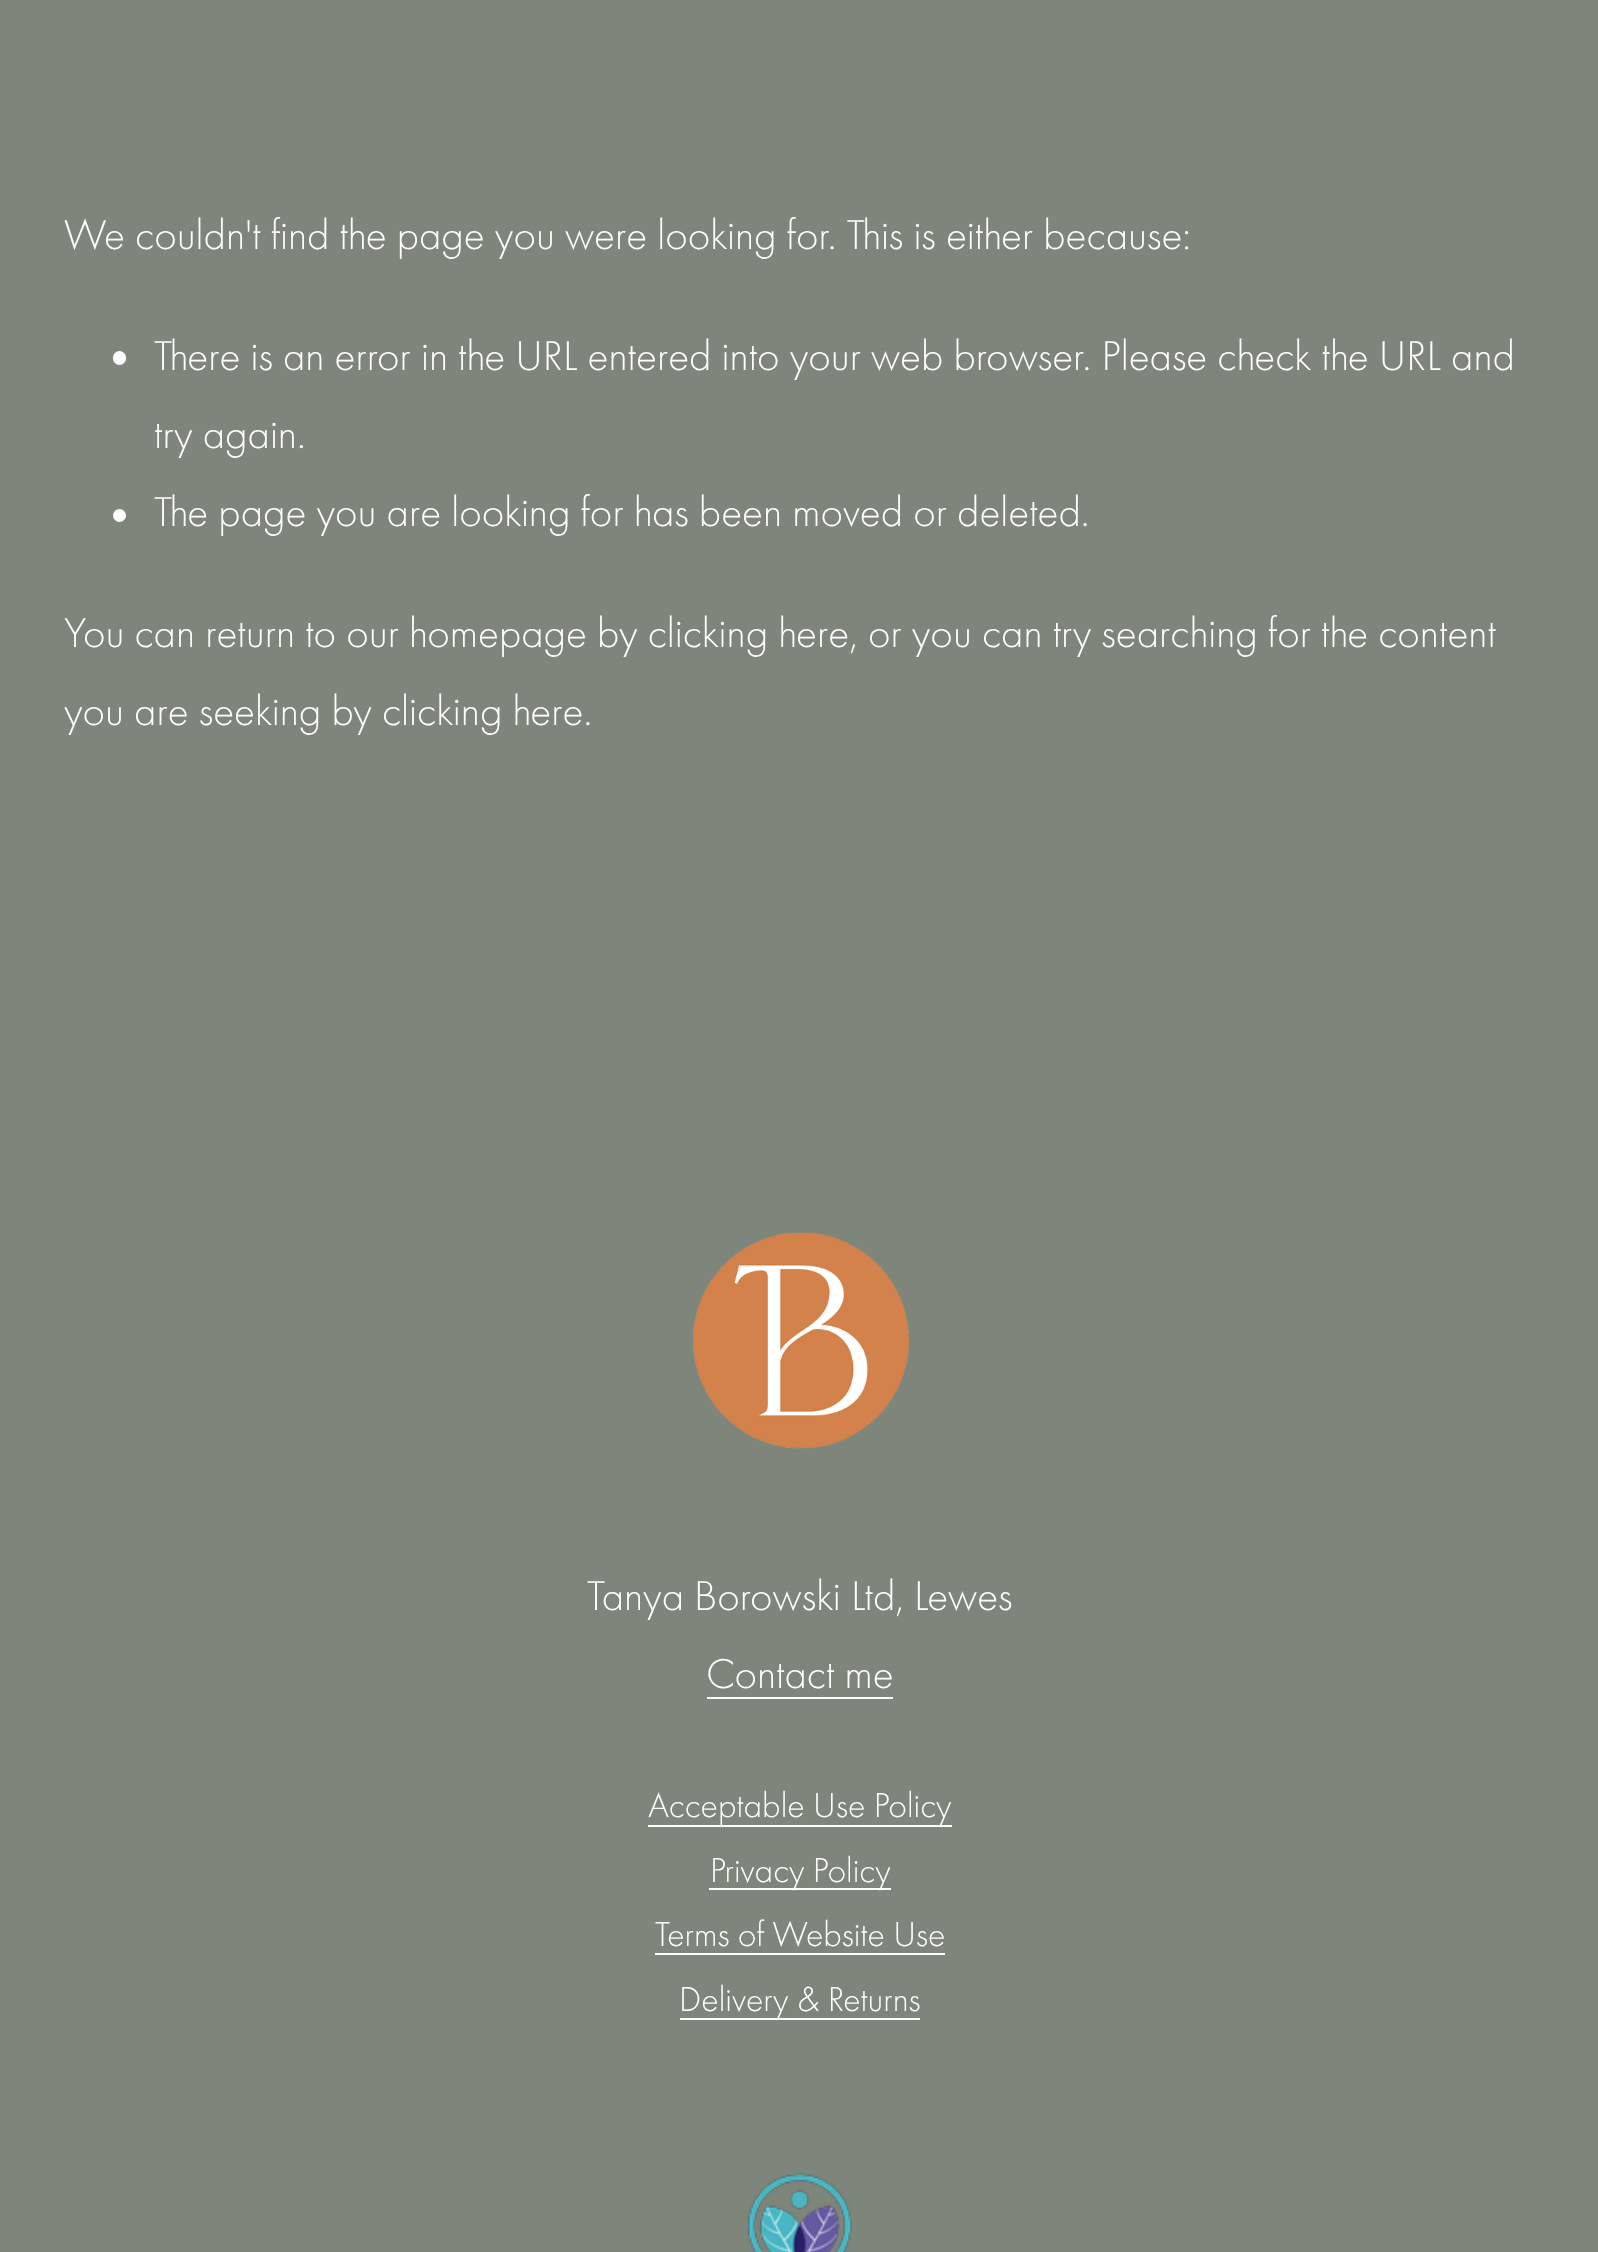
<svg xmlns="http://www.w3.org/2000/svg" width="1598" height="2252">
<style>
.a{font:300 43.3px Futura PT;fill:#fff}
.b{font:300 36px Futura PT;fill:#fff}
</style>
<rect width="100%" height="100%" fill="#7e857b"/>
<rect fill="#fff" x="113" y="351" width="13" height="14" rx="6.5"/>
<circle fill="#fff" cx="119.5" cy="515.5" r="6.5"/>
<image href="1.png" x="693" y="1232" width="216" height="217"/>
<path fill="#fff" d="M707 1697h186v2H707z"/>
<path fill="#fff" d="M648 1825h304v2H648z"/>
<path fill="#fff" d="M709 1888h182v2H709z"/>
<path fill="#fff" d="M655 1953h290v2H655z"/>
<path fill="#fff" d="M680 2018h240v2H680z"/>
<image href="2.png" x="747" y="2173" width="105" height="79"/>
<text class="a" x="64" y="249">We couldn't find the page you were looking for. This is either because:</text>
<text class="a" x="154" y="370">There is an error in the URL entered into your web browser. Please check the URL and</text>
<text class="a" x="154" y="448">try again.</text>
<text class="a" x="154" y="526">The page you are looking for has been moved or deleted.</text>
<text class="a" x="64" y="647">You can return to our homepage by clicking here, or you can try searching for the content</text>
<text class="a" x="64" y="725">you are seeking by clicking here.</text>
<text class="a" x="587" y="1610">Tanya Borowski Ltd, Lewes</text>
<text class="a" x="706" y="1688">Contact me</text>
<text class="b" x="648" y="1817">Acceptable Use Policy</text>
<text class="b" x="710" y="1882">Privacy Policy</text>
<text class="b" x="655" y="1946">Terms of Website Use</text>
<text class="b" x="679" y="2011">Delivery &amp; Returns</text>
</svg>
